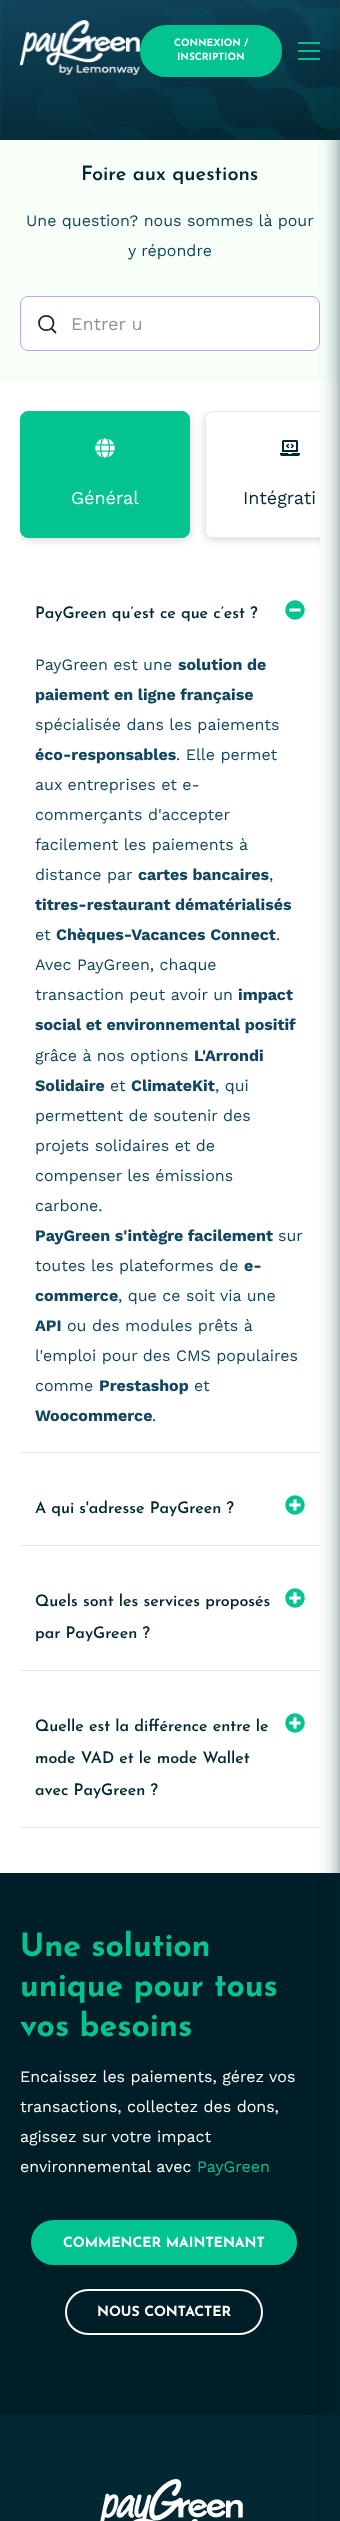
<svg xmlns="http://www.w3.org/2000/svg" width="340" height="2521">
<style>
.a{font:bold 32px Josefin Sans;fill:#03c490}
.b{font:16px Work Sans;fill:#fff}
.c{font:16px Work Sans;fill:#03c490}
.d{font:bold 10px Josefin Sans;fill:#fff}
.e{font:600 16px Josefin Sans;fill:#032833}
.f{font:16px Work Sans;fill:#124660}
.g{font:bold 16px Work Sans;fill:#124660}
.h{font:18px Work Sans;fill:#032833}
.i{font:18px Work Sans;fill:#fff}
.j{font:18px Work Sans;fill:#8e949c}
.k{font:600 20px Josefin Sans;fill:#032833}
.l{font:bold 14px Josefin Sans;fill:#fff}
</style>
<defs>
<clipPath id="clip1"><path d="M0 140h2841v241H0z"/></clipPath>
<clipPath id="clip2"><path d="M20 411h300v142H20z"/></clipPath>
<clipPath id="clip3"><path d="M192 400h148v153h-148zm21 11h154c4.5 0 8 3.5 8 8v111c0 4.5-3.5 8-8 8h-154c-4.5 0-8-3.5-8-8v-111c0-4.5 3.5-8 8-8z" clip-rule="evenodd"/></clipPath>
<clipPath id="clip4"><path d="M20 411h300v142H20z"/></clipPath>
</defs>
<rect width="100%" height="100%" fill="#fff"/>
<image href="2.png" x="0" y="0" width="340" height="140"/>
<path fill="#001e27" d="M0 1873h340v542H0z"/>
<path fill="#032833" d="M0 2415h340v106H0z"/>
<image href="7.png" x="100" y="2479" width="143" height="42"/>
<text class="a" x="20" y="1956">Une solution</text>
<text class="a" x="20" y="1996">unique pour tous</text>
<text class="a" x="20" y="2036">vos besoins</text>
<text class="b" x="20" y="2082">Encaissez les paiements, gérez vos</text>
<text class="b" x="20" y="2112">transactions, collectez des dons,</text>
<text class="b" x="20" y="2142">agissez sur votre impact</text>
<text class="b" x="20" y="2172">environnemental avec</text>
<text class="c" x="197" y="2172">PayGreen</text>
<g clip-path="url(#clip1)">
<path fill="none" stroke="#f8fff8" stroke-width="2521" d="M-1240.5 -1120.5h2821v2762H-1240.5z"/>
</g>
<path fill="#03c490" d="M298 58h22v2H298z"/>
<path fill="#03c490" d="M298 42h22v2H298z"/>
<path fill="#03c490" d="M298 50h22v2H298z"/>
<path fill="#e4e7ec" d="M20 1827h300v1H20z"/>
<path fill="#e4e7ec" d="M20 1670h300v1H20z"/>
<path fill="#e4e7ec" d="M20 1545h300v1H20z"/>
<path fill="#e4e7ec" d="M20 1452h300v1H20z"/>
<g clip-path="url(#clip2)">
<g clip-path="url(#clip3)">
<rect fill="#00000026" filter="blur(4px)" x="205" y="413" width="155" height="127" rx="8"/>
</g>
</g>
<g clip-path="url(#clip4)">
<rect fill="none" stroke="#e4e7ec" x="205.5" y="411.5" width="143" height="126" rx="7.5"/>
</g>
<path fill="#f8fff8" d="M20 140h300v241H20z"/>
<rect fill="#fff" x="20" y="296" width="300" height="55" rx="8"/>
<rect fill="none" stroke="#7c4ef680" x="20.5" y="296.5" width="299" height="54" rx="7.5"/>
<path fill="#032833" filter="blur(12px)" d="M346 6h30v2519H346z"/>
<rect fill="#03c490" stroke="#03c490" stroke-width="2" x="141" y="26" width="140" height="50" rx="25"/>
<text class="d" x="177" y="60">INSCRIPTION</text>
<text class="d" x="174" y="46">CONNEXION /</text>
<image href="1.png" x="20" y="20" width="120" height="55"/>
<image href="6.png" x="285" y="1713" width="20" height="20"/>
<image href="6.png" x="285" y="1588" width="20" height="20"/>
<image href="6.png" x="285" y="1495" width="20" height="20"/>
<image href="5.png" x="285" y="600" width="20" height="20"/>
<text class="e" x="35" y="1795">avec PayGreen ?</text>
<text class="e" x="35" y="1763">mode VAD et le mode Wallet</text>
<text class="e" x="35" y="1731">Quelle est la différence entre le</text>
<text class="e" x="35" y="1638">par PayGreen ?</text>
<text class="e" x="35" y="1606">Quels sont les services proposés</text>
<text class="e" x="35" y="1513">A qui s'adresse PayGreen ?</text>
<text class="f" x="152" y="1421">.</text>
<text class="g" x="35" y="1421">Woocommerce</text>
<text class="f" x="194" y="1391">et</text>
<text class="g" x="99" y="1391">Prestashop</text>
<text class="f" x="35" y="1391">comme</text>
<text class="f" x="35" y="1361">l'emploi pour des CMS populaires</text>
<text class="f" x="67" y="1331">ou des modules prêts à</text>
<text class="g" x="35" y="1331">API</text>
<text class="f" x="118" y="1301">, que ce soit via une</text>
<text class="g" x="35" y="1301">commerce</text>
<text class="g" x="244" y="1271">e-</text>
<text class="f" x="35" y="1271">toutes les plateformes de</text>
<text class="f" x="278" y="1241">sur</text>
<text class="g" x="35" y="1241">PayGreen s'intègre facilement</text>
<text class="f" x="35" y="1211">carbone.</text>
<text class="f" x="35" y="1181">compenser les émissions</text>
<text class="f" x="35" y="1151">projets solidaires et de</text>
<text class="f" x="35" y="1121">permettent de soutenir des</text>
<text class="f" x="215" y="1091">, qui</text>
<text class="g" x="131" y="1091">ClimateKit</text>
<text class="f" x="110" y="1091">et</text>
<text class="g" x="35" y="1091">Solidaire</text>
<text class="g" x="194" y="1061">L'Arrondi</text>
<text class="f" x="35" y="1061">grâce à nos options</text>
<text class="g" x="35" y="1030">social et environnemental positif</text>
<text class="g" x="238" y="1000">impact</text>
<text class="f" x="35" y="1000">transaction peut avoir un</text>
<text class="f" x="35" y="970">Avec PayGreen, chaque</text>
<text class="f" x="276" y="940">.</text>
<text class="g" x="56" y="940">Chèques-Vacances Connect</text>
<text class="f" x="35" y="940">et</text>
<text class="g" x="35" y="910">titres-restaurant dématérialisés</text>
<text class="f" x="269" y="880">,</text>
<text class="g" x="138" y="880">cartes bancaires</text>
<text class="f" x="35" y="880">distance par</text>
<text class="f" x="35" y="850">facilement les paiements à</text>
<text class="f" x="35" y="820">commerçants d'accepter</text>
<text class="f" x="35" y="790">aux entreprises et e-</text>
<text class="f" x="176" y="760">. Elle permet</text>
<text class="g" x="35" y="760">éco-responsables</text>
<text class="f" x="35" y="730">spécialisée dans les paiements</text>
<text class="g" x="35" y="700">paiement en ligne française</text>
<text class="g" x="178" y="670">solution de</text>
<text class="f" x="35" y="670">PayGreen est une</text>
<text class="e" x="35" y="618">PayGreen qu’est ce que c’est ?</text>
<image href="4.png" x="280" y="440" width="20" height="16"/>
<text class="h" x="243" y="504">Intégrati</text>
<g clip-path="url(#clip2)">
<rect fill="#00000026" filter="blur(4px)" x="20" y="413" width="170" height="127" rx="8"/>
</g>
<rect fill="#03c490" stroke="#03c490" x="20.5" y="411.5" width="169" height="126" rx="7.5"/>
<image href="3.png" x="95" y="438" width="20" height="20"/>
<text class="i" x="71" y="504">Général</text>
<path fill="none" stroke="#1d2939" stroke-width="1.8" stroke-linecap="round" stroke-linejoin="round" d="M55.5 332.5l-4-4m2-5.5c0 9.5-14.5 9.5-14.5 0c0-9.5 14.5-9.5 14.5 0z"/>
<text class="j" x="71" y="330">Entrer u</text>
<text class="f" x="128" y="256">y répondre</text>
<text class="f" x="26" y="226">Une question? nous sommes là pour</text>
<text class="k" x="81" y="180">Foire aux questions</text>
<rect fill="#03c490" stroke="#03c490" stroke-width="2" x="32" y="2221" width="264" height="43" rx="21.5"/>
<text class="l" x="63" y="2247">COMMENCER MAINTENANT</text>
<rect fill="none" stroke="#fff" stroke-width="2" x="66" y="2290" width="196" height="44" rx="22"/>
<text class="l" x="97" y="2316">NOUS CONTACTER</text>
</svg>
